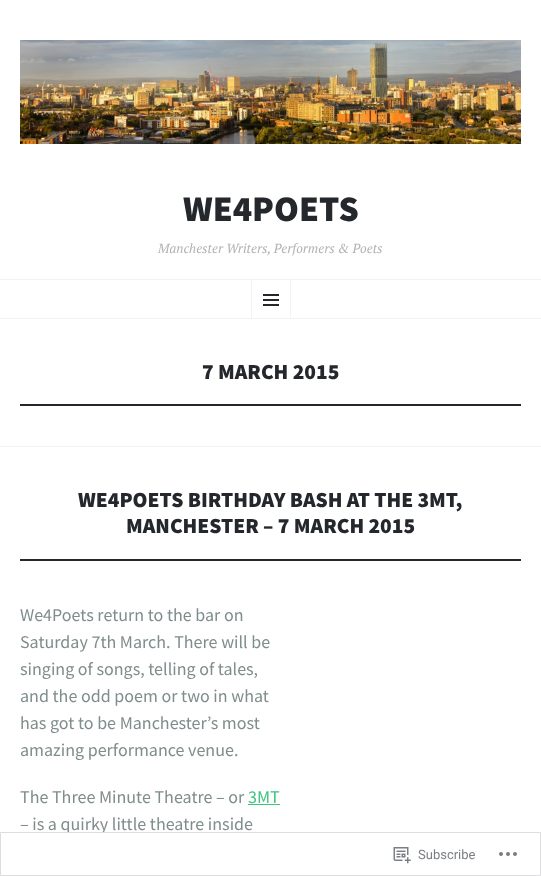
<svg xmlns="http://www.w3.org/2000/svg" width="541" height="876">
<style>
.a{font:900 36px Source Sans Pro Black;fill:#24282d}
.b{font:italic 13.1px PT Serif;fill:#b1b2b3}
.c{font:900 21.6px Source Sans Pro Black;fill:#24282d}
.d{font:18px Source Sans Pro;fill:#7f8d8c}
.e{font:18px Source Sans Pro;fill:#3fc380}
.f{font:13px Roboto;fill:#7b7f85}
</style>
<rect width="100%" height="100%" fill="#fff"/>
<image href="1.png" x="20" y="40" width="501" height="104"/>
<path fill="#f1f2f3" d="M0 279h541v1H0z"/>
<path fill="#f1f2f3" d="M0 318h541v1H0z"/>
<path fill="none" stroke="#f1f2f3" d="M251.5 279.5h39v39H251.5z"/>
<image href="2.png" x="263" y="294" width="16" height="12"/>
<path fill="#24282d" d="M20 404h501v2H20z"/>
<path fill="#f1f2f3" d="M0 446h541v1H0z"/>
<path fill="#24282d" d="M20 559h501v2H20z"/>
<path fill="#3fc380" d="M248 804h32v1H248z"/>
<text class="a" x="183" y="221">WE4POETS</text>
<text class="b" x="158" y="253">Manchester Writers, Performers &amp; Poets</text>
<text class="c" x="202" y="379">7 MARCH 2015</text>
<text class="c" x="78" y="507">WE4POETS BIRTHDAY BASH AT THE 3MT,</text>
<text class="c" x="126" y="533">MANCHESTER – 7 MARCH 2015</text>
<text class="d" x="20" y="621">We4Poets return to the bar on</text>
<text class="d" x="20" y="648">Saturday 7th March. There will be</text>
<text class="d" x="20" y="675">singing of songs, telling of tales,</text>
<text class="d" x="20" y="702">and the odd poem or two in what</text>
<text class="d" x="20" y="729">has got to be Manchester’s most</text>
<text class="d" x="20" y="756">amazing performance venue.</text>
<text class="d" x="20" y="803">The Three Minute Theatre – or</text>
<text class="e" x="248" y="803">3MT</text>
<text class="d" x="20" y="830">– is a quirky little theatre inside</text>
<path fill="#fffffffa" d="M67 832h37v2H67z"/>
<path fill="none" stroke="#dcdcdefa" d="M0.5 832.5h540v43H0.5z"/>
<image href="3.png" x="393" y="847" width="18" height="17"/>
<text class="f" x="418" y="859">Subscribe</text>
<image href="4.png" x="499" y="852" width="18" height="4"/>
</svg>
